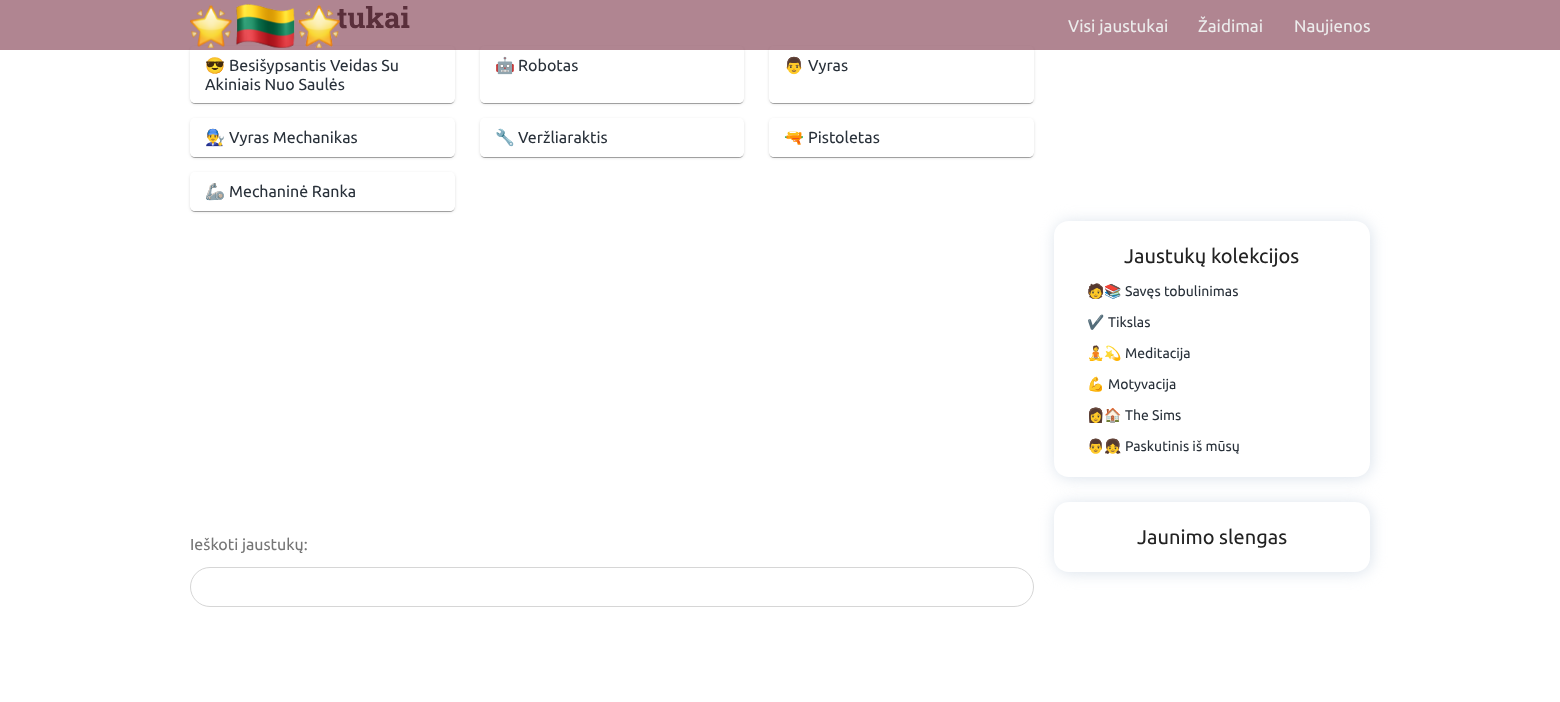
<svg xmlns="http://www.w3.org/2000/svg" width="1560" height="702">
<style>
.a{font:bold 29px Roboto Slab;fill:#444}
.b{font:16px Noto Color Emoji;fill:#29313a}
.c{font:16px Ubuntu;fill:#29313a}
.d{font:16px Ubuntu;fill:#757575}
.e{font:20px Ubuntu;fill:#222}
.f{font:14px Noto Color Emoji;fill:#29313a}
.g{font:14px Ubuntu;fill:#29313a}
.h{font:17px Ubuntu;fill:#ececec}
</style>
<defs>
<clipPath id="clip1"><path d="M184 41h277v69h-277zm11 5h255c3 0 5 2 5 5v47c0 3-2 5-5 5h-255c-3 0-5-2-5-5v-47c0-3 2-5 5-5z" clip-rule="evenodd"/></clipPath>
<clipPath id="clip2"><path d="M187 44h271v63h-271zm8 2h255c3 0 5 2 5 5v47c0 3-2 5-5 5h-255c-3 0-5-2-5-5v-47c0-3 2-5 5-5z" clip-rule="evenodd"/></clipPath>
<clipPath id="clip3"><path d="M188 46h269v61h-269zm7 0h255c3 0 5 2 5 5v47c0 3-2 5-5 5h-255c-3 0-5-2-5-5v-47c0-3 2-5 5-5z" clip-rule="evenodd"/></clipPath>
<clipPath id="clip4"><path d="M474 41h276v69h-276zm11 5h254c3 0 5 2 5 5v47c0 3-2 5-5 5h-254c-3 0-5-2-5-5v-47c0-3 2-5 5-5z" clip-rule="evenodd"/></clipPath>
<clipPath id="clip5"><path d="M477 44h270v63h-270zm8 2h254c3 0 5 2 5 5v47c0 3-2 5-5 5h-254c-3 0-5-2-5-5v-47c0-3 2-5 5-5z" clip-rule="evenodd"/></clipPath>
<clipPath id="clip6"><path d="M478 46h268v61h-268zm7 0h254c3 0 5 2 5 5v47c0 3-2 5-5 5h-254c-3 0-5-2-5-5v-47c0-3 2-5 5-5z" clip-rule="evenodd"/></clipPath>
<clipPath id="clip7"><path d="M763 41h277v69h-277zm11 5h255c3 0 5 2 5 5v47c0 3-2 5-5 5h-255c-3 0-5-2-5-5v-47c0-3 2-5 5-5z" clip-rule="evenodd"/></clipPath>
<clipPath id="clip8"><path d="M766 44h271v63h-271zm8 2h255c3 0 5 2 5 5v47c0 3-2 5-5 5h-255c-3 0-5-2-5-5v-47c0-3 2-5 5-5z" clip-rule="evenodd"/></clipPath>
<clipPath id="clip9"><path d="M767 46h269v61h-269zm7 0h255c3 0 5 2 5 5v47c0 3-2 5-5 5h-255c-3 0-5-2-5-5v-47c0-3 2-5 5-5z" clip-rule="evenodd"/></clipPath>
<clipPath id="clip10"><path d="M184 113h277v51h-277zm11 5h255c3 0 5 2 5 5v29c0 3-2 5-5 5h-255c-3 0-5-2-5-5v-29c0-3 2-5 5-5z" clip-rule="evenodd"/></clipPath>
<clipPath id="clip11"><path d="M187 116h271v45h-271zm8 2h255c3 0 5 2 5 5v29c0 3-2 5-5 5h-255c-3 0-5-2-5-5v-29c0-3 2-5 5-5z" clip-rule="evenodd"/></clipPath>
<clipPath id="clip12"><path d="M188 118h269v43h-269zm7 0h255c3 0 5 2 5 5v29c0 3-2 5-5 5h-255c-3 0-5-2-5-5v-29c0-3 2-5 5-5z" clip-rule="evenodd"/></clipPath>
<clipPath id="clip13"><path d="M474 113h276v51h-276zm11 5h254c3 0 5 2 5 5v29c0 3-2 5-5 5h-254c-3 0-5-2-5-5v-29c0-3 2-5 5-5z" clip-rule="evenodd"/></clipPath>
<clipPath id="clip14"><path d="M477 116h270v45h-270zm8 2h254c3 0 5 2 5 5v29c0 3-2 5-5 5h-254c-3 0-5-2-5-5v-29c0-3 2-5 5-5z" clip-rule="evenodd"/></clipPath>
<clipPath id="clip15"><path d="M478 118h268v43h-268zm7 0h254c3 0 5 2 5 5v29c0 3-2 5-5 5h-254c-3 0-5-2-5-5v-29c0-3 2-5 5-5z" clip-rule="evenodd"/></clipPath>
<clipPath id="clip16"><path d="M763 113h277v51h-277zm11 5h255c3 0 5 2 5 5v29c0 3-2 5-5 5h-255c-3 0-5-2-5-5v-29c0-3 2-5 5-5z" clip-rule="evenodd"/></clipPath>
<clipPath id="clip17"><path d="M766 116h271v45h-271zm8 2h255c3 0 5 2 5 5v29c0 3-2 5-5 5h-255c-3 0-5-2-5-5v-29c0-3 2-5 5-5z" clip-rule="evenodd"/></clipPath>
<clipPath id="clip18"><path d="M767 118h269v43h-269zm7 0h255c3 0 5 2 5 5v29c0 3-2 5-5 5h-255c-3 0-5-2-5-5v-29c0-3 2-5 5-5z" clip-rule="evenodd"/></clipPath>
<clipPath id="clip19"><path d="M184 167h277v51h-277zm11 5h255c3 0 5 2 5 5v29c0 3-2 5-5 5h-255c-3 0-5-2-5-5v-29c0-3 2-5 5-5z" clip-rule="evenodd"/></clipPath>
<clipPath id="clip20"><path d="M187 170h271v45h-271zm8 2h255c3 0 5 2 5 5v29c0 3-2 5-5 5h-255c-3 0-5-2-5-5v-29c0-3 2-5 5-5z" clip-rule="evenodd"/></clipPath>
<clipPath id="clip21"><path d="M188 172h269v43h-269zm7 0h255c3 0 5 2 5 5v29c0 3-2 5-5 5h-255c-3 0-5-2-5-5v-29c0-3 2-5 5-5z" clip-rule="evenodd"/></clipPath>
<clipPath id="clip22"><path d="M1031 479h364v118h-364zm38 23h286c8.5 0 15 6.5 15 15v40c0 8.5-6.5 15-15 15h-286c-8.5 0-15-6.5-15-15v-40c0-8.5 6.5-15 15-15z" clip-rule="evenodd"/></clipPath>
<clipPath id="clip23"><path d="M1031 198h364v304h-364zm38 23h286c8.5 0 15 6.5 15 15v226c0 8.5-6.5 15-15 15h-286c-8.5 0-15-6.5-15-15v-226c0-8.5 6.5-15 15-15z" clip-rule="evenodd"/></clipPath>
</defs>
<rect width="100%" height="100%" fill="#fff"/>
<g clip-path="url(#clip1)">
<rect fill="#0000001f" filter="blur(1.5px)" x="190" y="47" width="265" height="57" rx="5"/>
</g>
<g clip-path="url(#clip2)">
<rect fill="#00000024" filter="blur(0.5px)" x="190" y="47" width="265" height="57" rx="5"/>
</g>
<g clip-path="url(#clip3)">
<rect fill="#00000033" filter="blur(0.5px)" x="191" y="49" width="263" height="55" rx="4"/>
</g>
<g clip-path="url(#clip4)">
<rect fill="#0000001f" filter="blur(1.5px)" x="480" y="47" width="264" height="57" rx="5"/>
</g>
<g clip-path="url(#clip5)">
<rect fill="#00000024" filter="blur(0.5px)" x="480" y="47" width="264" height="57" rx="5"/>
</g>
<g clip-path="url(#clip6)">
<rect fill="#00000033" filter="blur(0.5px)" x="481" y="49" width="262" height="55" rx="4"/>
</g>
<g clip-path="url(#clip7)">
<rect fill="#0000001f" filter="blur(1.5px)" x="769" y="47" width="265" height="57" rx="5"/>
</g>
<g clip-path="url(#clip8)">
<rect fill="#00000024" filter="blur(0.5px)" x="769" y="47" width="265" height="57" rx="5"/>
</g>
<g clip-path="url(#clip9)">
<rect fill="#00000033" filter="blur(0.5px)" x="770" y="49" width="263" height="55" rx="4"/>
</g>
<g clip-path="url(#clip10)">
<rect fill="#0000001f" filter="blur(1.5px)" x="190" y="119" width="265" height="39" rx="5"/>
</g>
<g clip-path="url(#clip11)">
<rect fill="#00000024" filter="blur(0.5px)" x="190" y="119" width="265" height="39" rx="5"/>
</g>
<g clip-path="url(#clip12)">
<rect fill="#00000033" filter="blur(0.5px)" x="191" y="121" width="263" height="37" rx="4"/>
</g>
<g clip-path="url(#clip13)">
<rect fill="#0000001f" filter="blur(1.5px)" x="480" y="119" width="264" height="39" rx="5"/>
</g>
<g clip-path="url(#clip14)">
<rect fill="#00000024" filter="blur(0.5px)" x="480" y="119" width="264" height="39" rx="5"/>
</g>
<g clip-path="url(#clip15)">
<rect fill="#00000033" filter="blur(0.5px)" x="481" y="121" width="262" height="37" rx="4"/>
</g>
<g clip-path="url(#clip16)">
<rect fill="#0000001f" filter="blur(1.5px)" x="769" y="119" width="265" height="39" rx="5"/>
</g>
<g clip-path="url(#clip17)">
<rect fill="#00000024" filter="blur(0.5px)" x="769" y="119" width="265" height="39" rx="5"/>
</g>
<g clip-path="url(#clip18)">
<rect fill="#00000033" filter="blur(0.5px)" x="770" y="121" width="263" height="37" rx="4"/>
</g>
<g clip-path="url(#clip19)">
<rect fill="#0000001f" filter="blur(1.5px)" x="190" y="173" width="265" height="39" rx="5"/>
</g>
<g clip-path="url(#clip20)">
<rect fill="#00000024" filter="blur(0.5px)" x="190" y="173" width="265" height="39" rx="5"/>
</g>
<g clip-path="url(#clip21)">
<rect fill="#00000033" filter="blur(0.5px)" x="191" y="175" width="263" height="37" rx="4"/>
</g>
<g clip-path="url(#clip22)">
<rect fill="#dae2eb" filter="blur(7.5px)" x="1055" y="503" width="316" height="70" rx="15"/>
</g>
<rect fill="none" stroke="#d6d6d6" x="190.5" y="567.5" width="843" height="39" rx="19.5"/>
<g clip-path="url(#clip23)">
<rect fill="#dae2eb" filter="blur(7.5px)" x="1055" y="222" width="316" height="256" rx="15"/>
</g>
<text class="a" x="337" y="28">tukai</text>
<text class="b" x="205" y="71">😎</text>
<text class="c" x="229" y="71">Besišypsantis Veidas Su</text>
<text class="c" x="205" y="90">Akiniais Nuo Saulės</text>
<text class="b" x="495" y="71">🤖</text>
<text class="c" x="518" y="71">Robotas</text>
<text class="b" x="784" y="71">👨</text>
<text class="c" x="808" y="71">Vyras</text>
<text class="b" x="205" y="143">👨‍🔧</text>
<text class="c" x="229" y="143">Vyras Mechanikas</text>
<text class="b" x="495" y="143">🔧</text>
<text class="c" x="518" y="143">Veržliaraktis</text>
<text class="b" x="784" y="143">🔫</text>
<text class="c" x="808" y="143">Pistoletas</text>
<text class="b" x="205" y="197">🦾</text>
<text class="c" x="229" y="197">Mechaninė Ranka</text>
<text class="d" x="190" y="550">Ieškoti jaustukų:</text>
<text class="e" x="1124" y="263">Jaustukų kolekcijos</text>
<text class="f" x="1087" y="296">🧑📚</text>
<text class="g" x="1125" y="296">Savęs tobulinimas</text>
<text class="f" x="1087" y="327">✔️</text>
<text class="g" x="1108" y="327">Tikslas</text>
<text class="f" x="1087" y="358">🧘💫</text>
<text class="g" x="1125" y="358">Meditacija</text>
<text class="f" x="1087" y="389">💪</text>
<text class="g" x="1108" y="389">Motyvacija</text>
<text class="f" x="1087" y="420">👩🏠</text>
<text class="g" x="1125" y="420">The Sims</text>
<text class="f" x="1087" y="451">👨👧</text>
<text class="g" x="1125" y="451">Paskutinis iš mūsų</text>
<text class="e" x="1137" y="544">Jaunimo slengas</text>
<path fill="#6d1e338a" d="M0 0h1560v50H0z"/>
<image href="1.png" x="190" y="4" width="150" height="44"/>
<text class="h" x="1068" y="32">Visi jaustukai</text>
<text class="h" x="1198" y="32">Žaidimai</text>
<text class="h" x="1294" y="32">Naujienos</text>
</svg>
